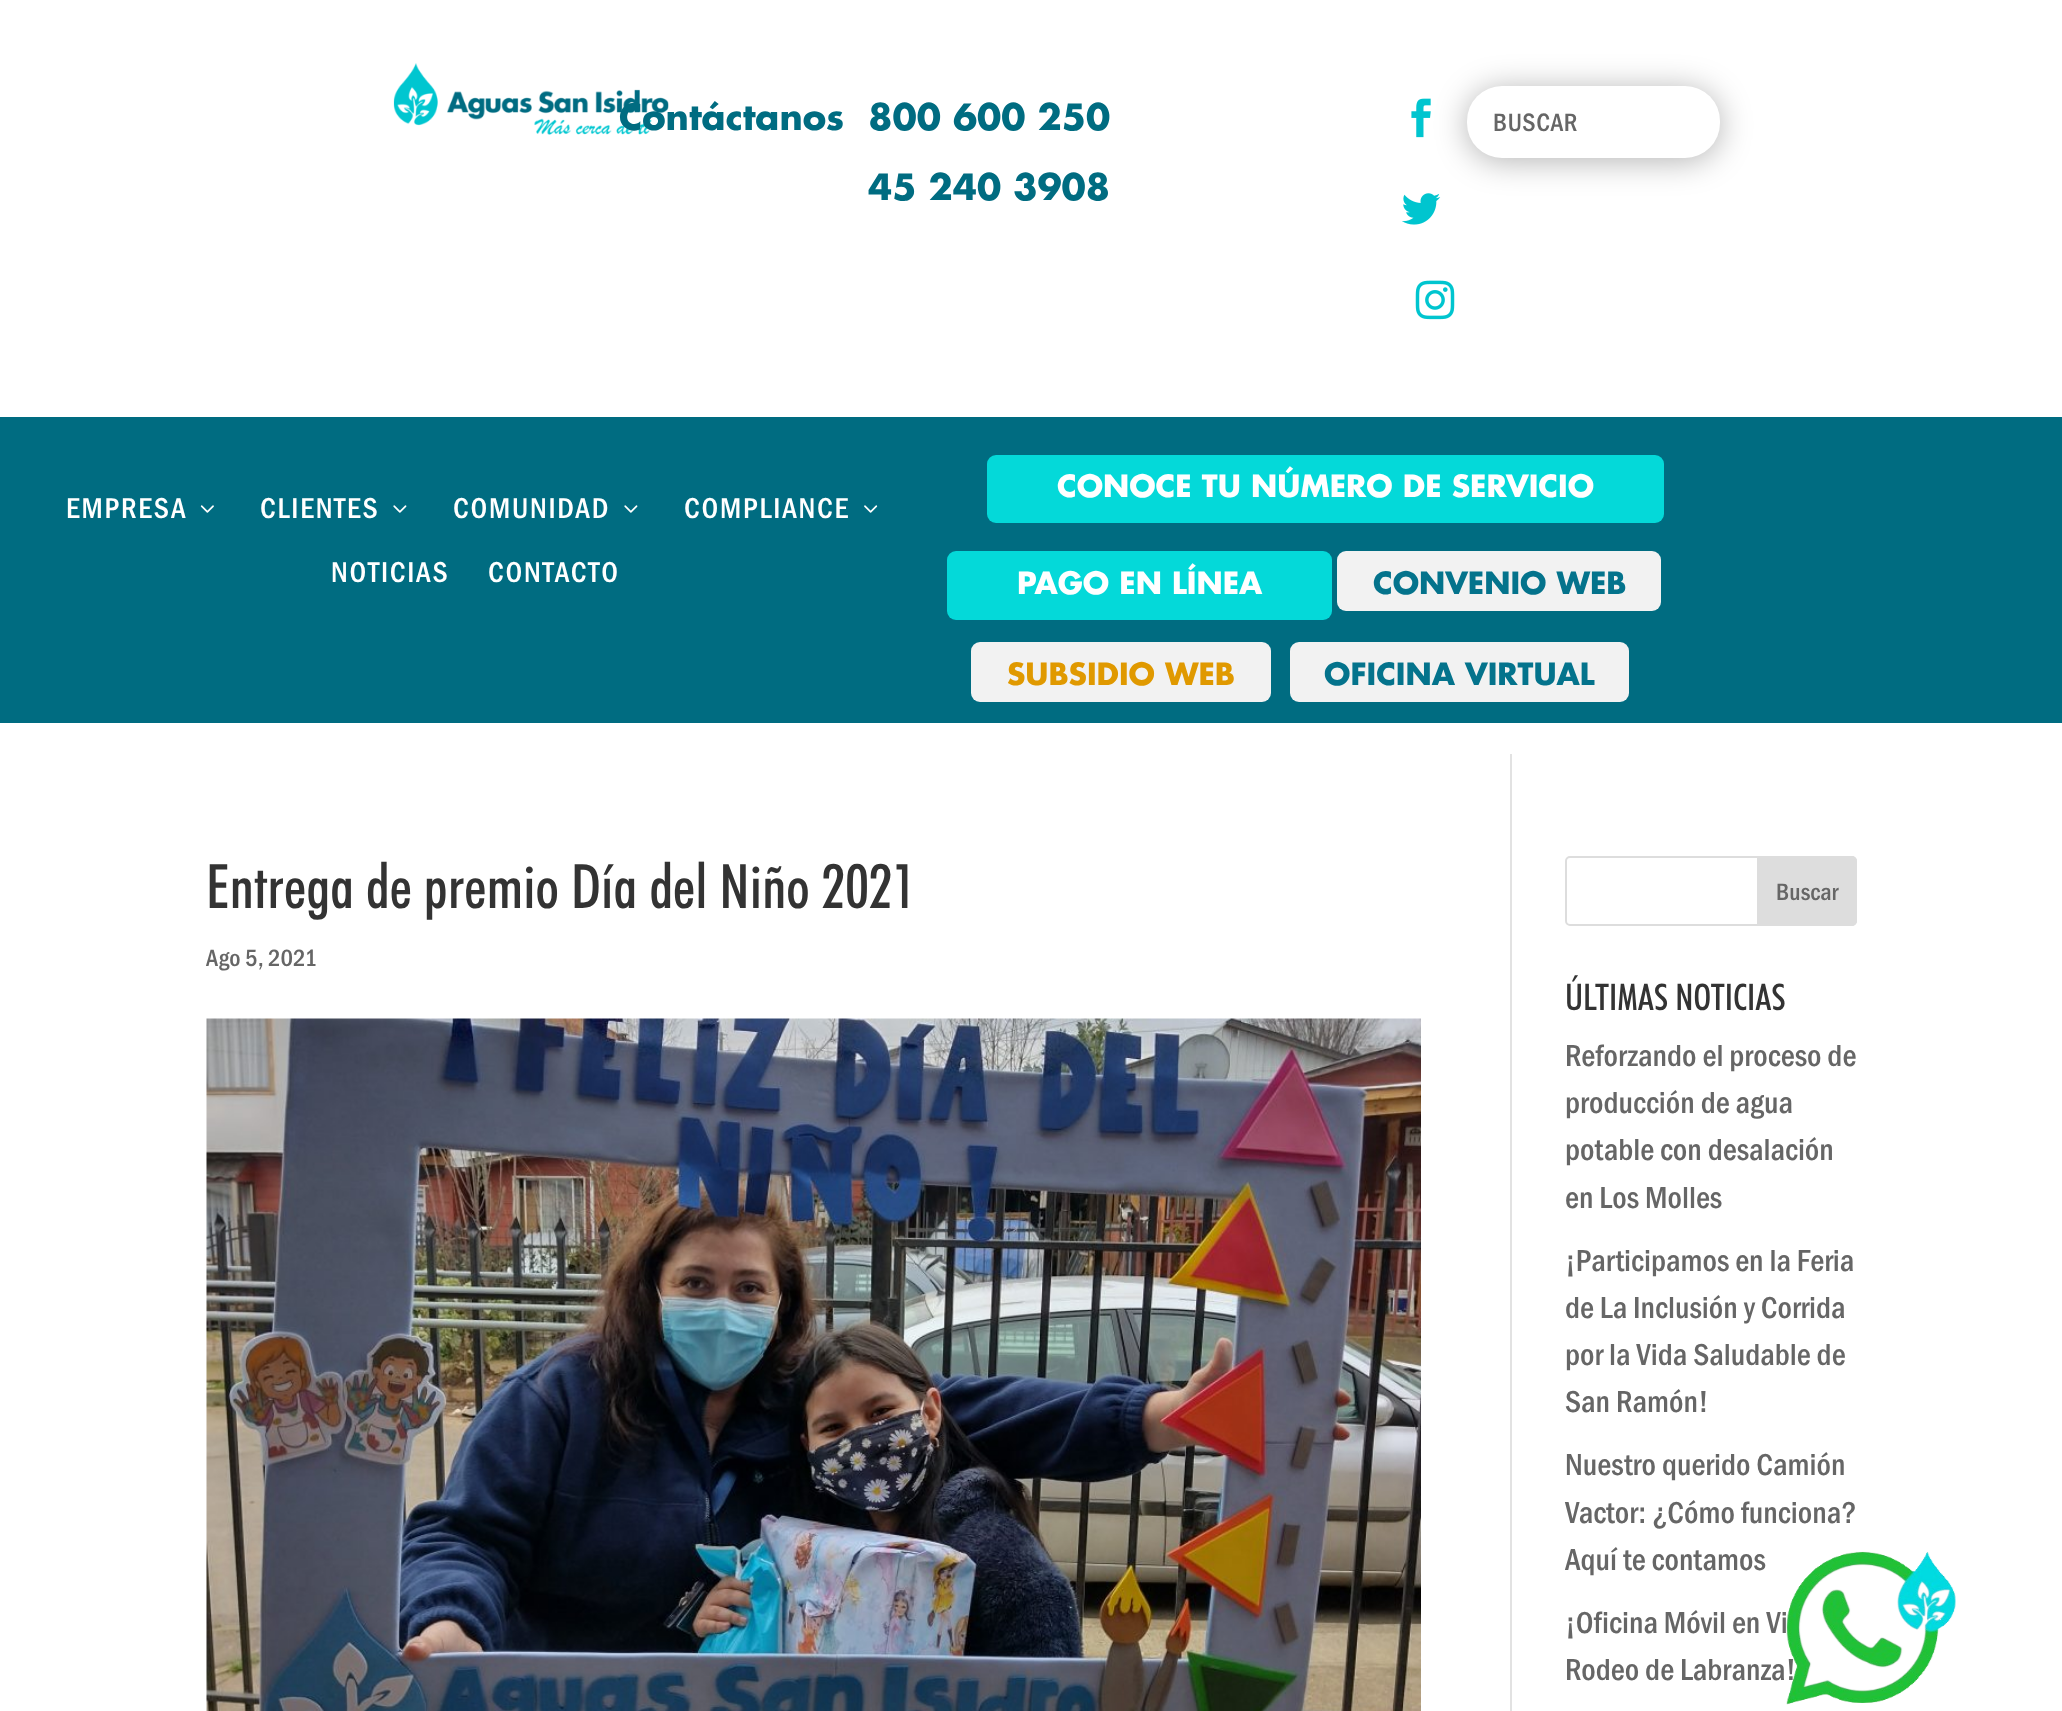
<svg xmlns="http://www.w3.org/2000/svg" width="2062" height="1711">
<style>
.a{font:bold 35.25px Futura;fill:#006c81}
.b{font:500 26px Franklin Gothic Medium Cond;letter-spacing:0.5px;fill:#666}
.c{font:500 29.75px Franklin Gothic Medium Cond;letter-spacing:1.75px;fill:#fff}
.d{font:bold 29.75px Futura;fill:#fff}
.e{font:bold 29.75px Futura;fill:#04738c}
.f{font:bold 29.75px Futura;fill:#e09900}
.g{font:500 61.25px Futura;fill:#333}
.h{font:500 24.5px Franklin Gothic Medium Cond;fill:#666}
.i{font:500 36.75px Futura;fill:#333}
.j{font:500 31.5px Franklin Gothic Medium Cond;fill:#666}
</style>
<rect width="100%" height="100%" fill="#fff"/>
<image href="1.png" x="393" y="63" width="276" height="72"/>
<image href="2.png" x="1411" y="98" width="20" height="40"/>
<image href="3.png" x="1402" y="193" width="39" height="32"/>
<image href="4.png" x="1415" y="280" width="40" height="40"/>
<rect fill="#0000004d" filter="blur(16px)" x="1467" y="89" width="253" height="72" rx="35"/>
<rect fill="#fff" x="1467" y="86" width="253" height="72" rx="35"/>
<path fill="#006c81" d="M0 417h2062v306H0z"/>
<image href="5.png" x="200" y="505" width="14" height="8"/>
<image href="6.png" x="393" y="505" width="14" height="8"/>
<image href="6.png" x="624" y="505" width="14" height="8"/>
<image href="7.png" x="864" y="505" width="14" height="8"/>
<rect fill="#04d9d9" x="987" y="455" width="677" height="68" rx="9"/>
<rect fill="#04d9d9" x="947" y="551" width="385" height="69" rx="9"/>
<rect fill="#f2f2f2" x="1337" y="551" width="324" height="60" rx="9"/>
<rect fill="#f2f2f2" x="971" y="642" width="300" height="60" rx="9"/>
<rect fill="#f2f2f2" x="1290" y="642" width="339" height="60" rx="9"/>
<path fill="#e2e2e2" d="M1510 754h2v957H1510z"/>
<image href="9.png" x="206" y="1018" width="1215" height="693"/>
<rect fill="none" stroke="#ddd" stroke-width="2" x="1566" y="857" width="290" height="68" rx="4"/>
<path fill="#ddd" stroke="#ddd" stroke-width="2" d="M1758 857h94c2 0 4 2 4 4v60c0 2-2 4-4 4h-94z"/>
<text class="a" xml:space="preserve" x="619" y="130">Contáctanos  800 600 250</text>
<text class="a" x="868" y="200">45 240 3908</text>
<text class="b" x="1493" y="131">BUSCAR</text>
<text class="c" x="66" y="518">EMPRESA</text>
<text class="c" x="260" y="518">CLIENTES</text>
<text class="c" x="453" y="518">COMUNIDAD</text>
<text class="c" x="684" y="518">COMPLIANCE</text>
<text class="c" x="331" y="582">NOTICIAS</text>
<text class="c" x="488" y="582">CONTACTO</text>
<text class="d" x="1057" y="497">CONOCE TU NÚMERO DE SERVICIO</text>
<text class="d" x="1017" y="594">PAGO EN LÍNEA</text>
<text class="e" x="1373" y="594">CONVENIO WEB</text>
<text class="f" x="1007" y="685">SUBSIDIO WEB</text>
<text class="e" x="1324" y="685">OFICINA VIRTUAL</text>
<text class="g" x="206" y="908">Entrega de premio Día del Niño 2021</text>
<text class="h" x="206" y="966">Ago 5, 2021</text>
<text class="h" x="1776" y="900">Buscar</text>
<text class="i" x="1565" y="1010">ÚLTIMAS NOTICIAS</text>
<text class="j" x="1565" y="1066">Reforzando el proceso de</text>
<text class="j" x="1565" y="1113">producción de agua</text>
<text class="j" x="1565" y="1160">potable con desalación</text>
<text class="j" x="1565" y="1208">en Los Molles</text>
<text class="j" x="1565" y="1271">¡Participamos en la Feria</text>
<text class="j" x="1565" y="1318">de La Inclusión y Corrida</text>
<text class="j" x="1565" y="1365">por la Vida Saludable de</text>
<text class="j" x="1565" y="1412">San Ramón!</text>
<text class="j" x="1565" y="1475">Nuestro querido Camión</text>
<text class="j" x="1565" y="1523">Vactor: ¿Cómo funciona?</text>
<text class="j" x="1565" y="1570">Aquí te contamos</text>
<text class="j" x="1565" y="1633">¡Oficina Móvil en Vi</text>
<text class="j" x="1565" y="1680">Rodeo de Labranza!</text>
<image href="8.png" x="1786" y="1551" width="170" height="154"/>
</svg>
